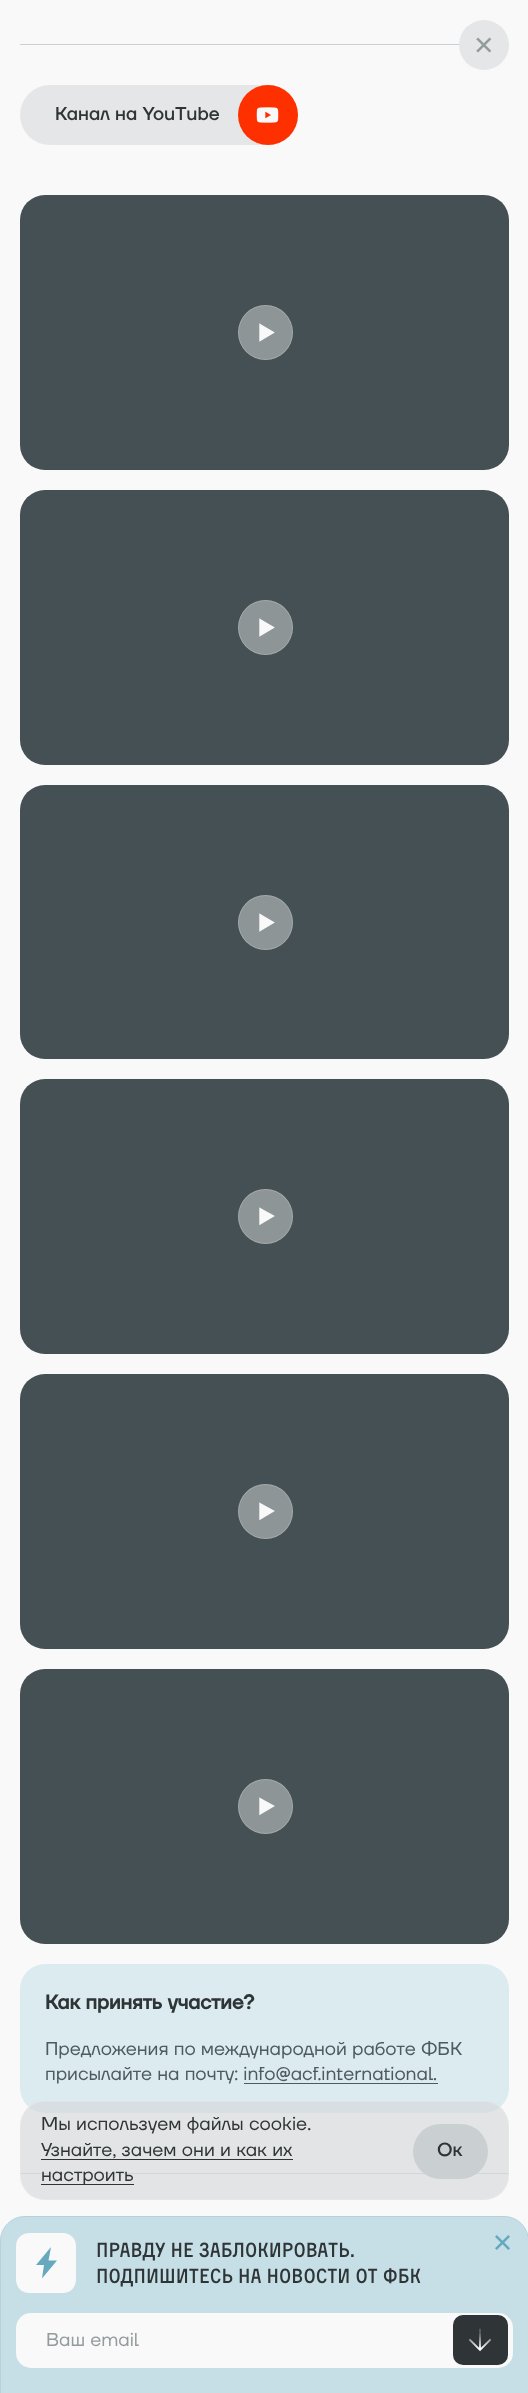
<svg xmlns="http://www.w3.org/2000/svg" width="528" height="2393">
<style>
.a{font:500 18.75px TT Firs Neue;fill:#2f3537}
.b{font:bold 20px TT Firs Neue;letter-spacing:-0.05px;fill:#2f3537}
.c{font:18.75px TT Firs Neue;letter-spacing:-0.05px;fill:#4d5a5e}
.d{font:18.75px TT Firs Neue;fill:#2f3537}
.e{font:20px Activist;fill:#2f3537}
.f{font:18.75px TT Firs Neue;letter-spacing:-0.05px;fill:#949b9d}
</style>
<rect width="100%" height="100%" fill="#f9f9f9"/>
<path fill="#cad0d1" d="M20 44h489v1H20z"/>
<circle fill="#e4e6e7" cx="484" cy="45" r="25"/>
<image href="1.png" x="476" y="37" width="16" height="16"/>
<rect fill="#e4e6e7" x="20" y="85" width="278" height="60" rx="30"/>
<circle fill="#ff3000" cx="268" cy="115" r="30"/>
<image href="2.png" x="256" y="107" width="23" height="16"/>
<rect fill="#4d5a5e" x="20" y="195" width="489" height="275" rx="25"/>
<rect fill="#0000001a" x="20" y="195" width="489" height="275" rx="25"/>
<circle fill="#8e9597" cx="265.5" cy="332.5" r="27.5"/>
<circle fill="none" stroke="#fafafa33" cx="265.5" cy="332.5" r="27"/>
<path fill="#f9f9f9" stroke="#f9f9f9" stroke-width="1.4" d="M260 324.5l13.5 8l-13.5 8z"/>
<rect fill="#4d5a5e" x="20" y="490" width="489" height="275" rx="25"/>
<rect fill="#0000001a" x="20" y="490" width="489" height="275" rx="25"/>
<circle fill="#8e9597" cx="265.5" cy="627.5" r="27.5"/>
<circle fill="none" stroke="#fafafa33" cx="265.5" cy="627.5" r="27"/>
<path fill="#f9f9f9" stroke="#f9f9f9" stroke-width="1.4" d="M260 619.5l13.5 8l-13.5 8z"/>
<rect fill="#4d5a5e" x="20" y="785" width="489" height="274" rx="25"/>
<rect fill="#0000001a" x="20" y="785" width="489" height="274" rx="25"/>
<circle fill="#8e9597" cx="265.5" cy="922.5" r="27.5"/>
<circle fill="none" stroke="#fafafa33" cx="265.5" cy="922.5" r="27"/>
<path fill="#f9f9f9" stroke="#f9f9f9" stroke-width="1.4" d="M260 914.5l13.5 8l-13.5 8z"/>
<rect fill="#4d5a5e" x="20" y="1079" width="489" height="275" rx="25"/>
<rect fill="#0000001a" x="20" y="1079" width="489" height="275" rx="25"/>
<circle fill="#8e9597" cx="265.5" cy="1216.5" r="27.5"/>
<circle fill="none" stroke="#fafafa33" cx="265.5" cy="1216.5" r="27"/>
<path fill="#f9f9f9" stroke="#f9f9f9" stroke-width="1.4" d="M260 1208.5l13.5 7.5l-13.5 8z"/>
<rect fill="#4d5a5e" x="20" y="1374" width="489" height="275" rx="25"/>
<rect fill="#0000001a" x="20" y="1374" width="489" height="275" rx="25"/>
<circle fill="#8e9597" cx="265.5" cy="1511.5" r="27.5"/>
<circle fill="none" stroke="#fafafa33" cx="265.5" cy="1511.5" r="27"/>
<path fill="#f9f9f9" stroke="#f9f9f9" stroke-width="1.4" d="M260 1503.5l13.5 7.5l-13.5 8z"/>
<rect fill="#4d5a5e" x="20" y="1669" width="489" height="275" rx="25"/>
<rect fill="#0000001a" x="20" y="1669" width="489" height="275" rx="25"/>
<circle fill="#8e9597" cx="265.5" cy="1806.5" r="27.5"/>
<circle fill="none" stroke="#fafafa33" cx="265.5" cy="1806.5" r="27"/>
<path fill="#f9f9f9" stroke="#f9f9f9" stroke-width="1.4" d="M260 1798.5l13.5 7.5l-13.5 8z"/>
<rect fill="#dbebf0" x="20" y="1964" width="489" height="149" rx="25"/>
<path fill="#4d5a5e" d="M244 2083h194v1H244z"/>
<path fill="#cad0d1" d="M20 2173h489v1H20z"/>
<rect fill="#d7d9dba6" x="20" y="2101" width="489" height="99" rx="25"/>
<rect fill="none" stroke="#eef0f24d" x="20.5" y="2101.5" width="488" height="98" rx="24.5"/>
<path fill="#2f3537" d="M41 2159h252v1H41z"/>
<path fill="#2f3537" d="M41 2184h93v1H41z"/>
<rect fill="#cad0d1" x="413" y="2124" width="75" height="55" rx="27.5"/>
<path fill="#c6dfe6" stroke="#b5d2db" d="M25 2216.5h479c13.5 0 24.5 11 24.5 24.5v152.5h-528v-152.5c0-13.5 11-24.5 24.5-24.5z"/>
<rect fill="#f9f9f9" x="16" y="2233" width="60" height="60" rx="13"/>
<path fill="#66a8bd" d="M48.5 2260.5h8.5l-15 18l2-13.5h-8l15-18z"/>
<image href="3.png" x="495" y="2235" width="15" height="15"/>
<rect fill="#f9f9f9" x="16" y="2313" width="497" height="55" rx="15"/>
<rect fill="#2f3537" x="453" y="2315" width="55" height="50" rx="10"/>
<image href="4.png" x="469" y="2328" width="22" height="24"/>
<text class="a" x="55" y="120">Канал на YouTube</text>
<text class="b" x="45" y="2009">Как принять участие?</text>
<text class="c" x="45" y="2055">Предложения по международной работе ФБК</text>
<text class="c" x="45" y="2080">присылайте на почту: info@acf.international.</text>
<text class="d" x="41" y="2130">Мы используем файлы cookie.</text>
<text class="d" x="41" y="2156">Узнайте, зачем они и как их</text>
<text class="d" x="41" y="2181">настроить</text>
<text class="a" x="437" y="2156">Ок</text>
<text class="e" x="96" y="2257">ПРАВДУ НЕ ЗАБЛОКИРОВАТЬ.</text>
<text class="e" x="96" y="2283">ПОДПИШИТЕСЬ НА НОВОСТИ ОТ ФБК</text>
<text class="f" x="46" y="2346">Ваш email</text>
</svg>
